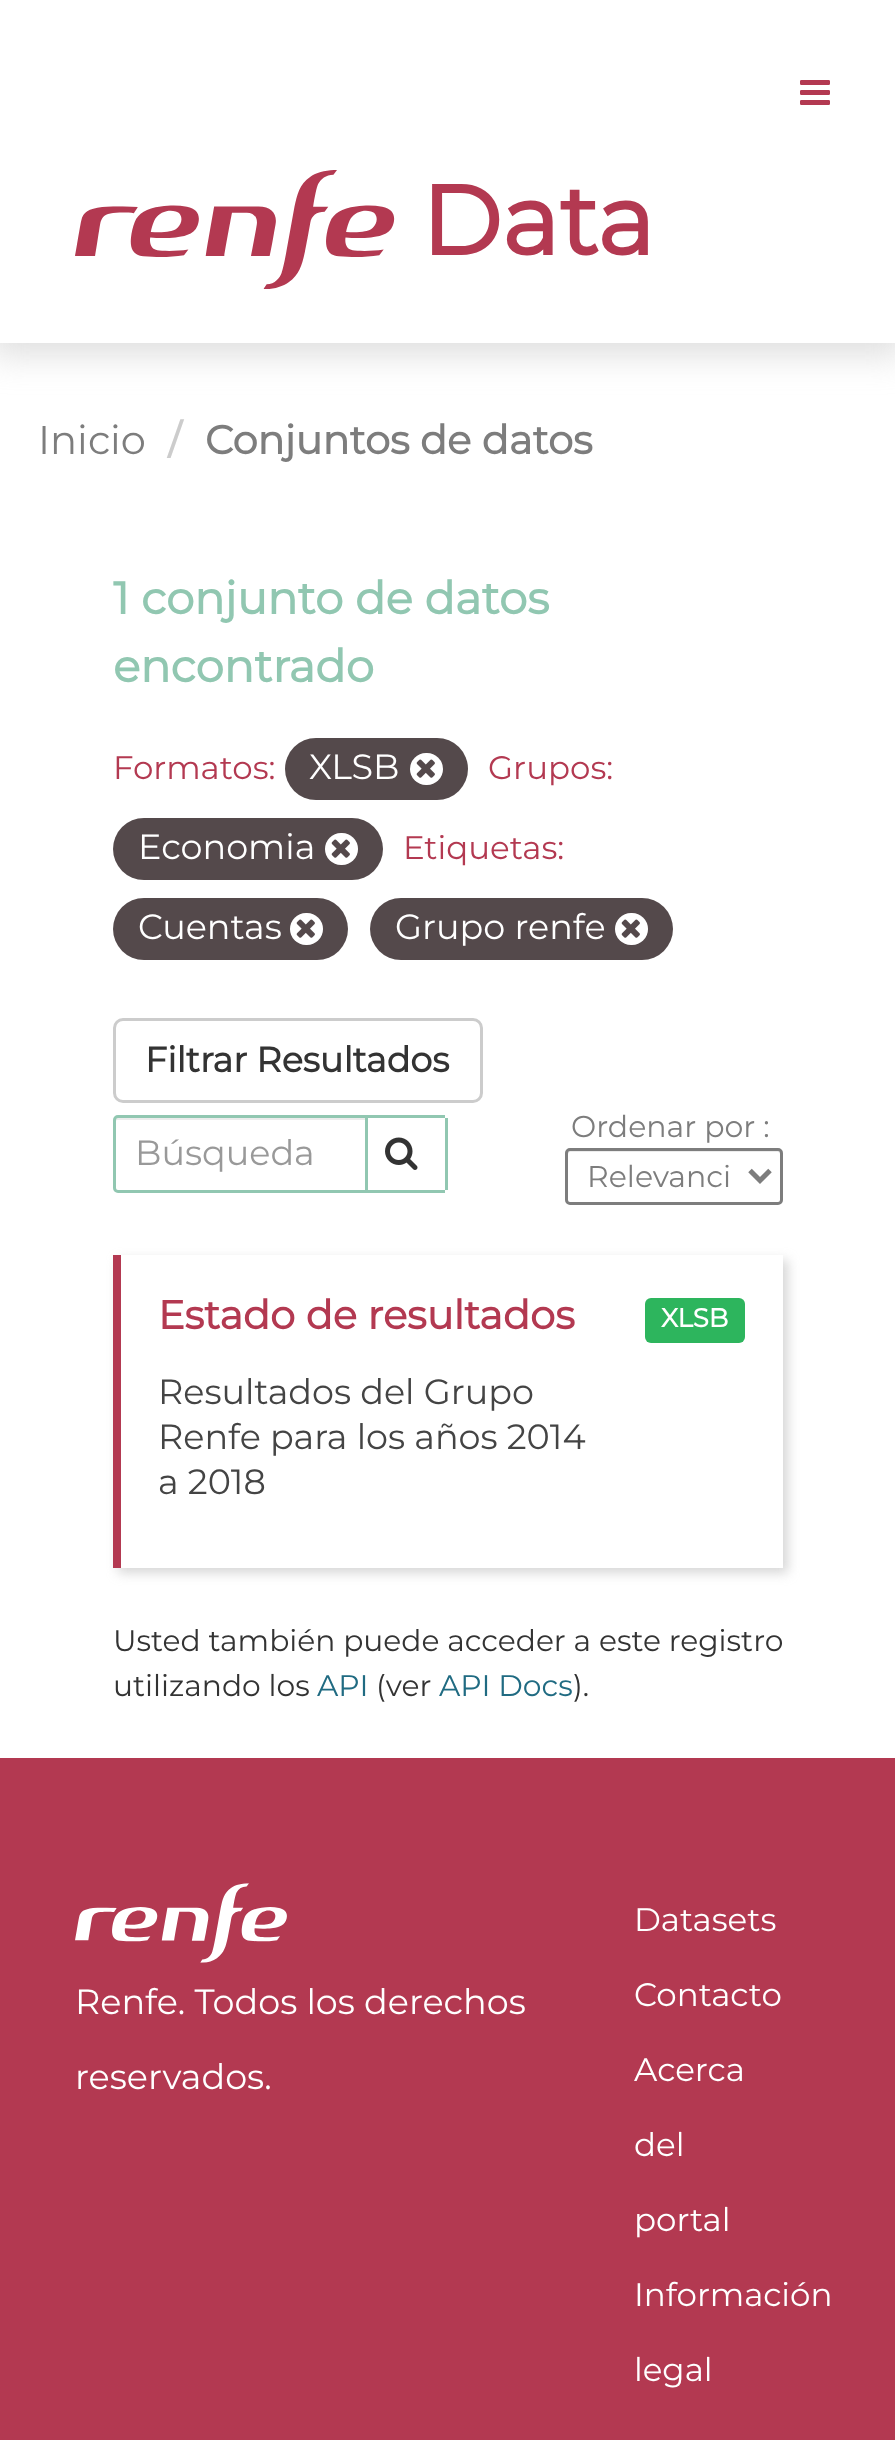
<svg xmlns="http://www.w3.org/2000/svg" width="895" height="2440">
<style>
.a{font:bold 97.5px Montserrat;fill:#b33951}
.b{font:100 40px Montserrat;fill:#7d7d7d}
.c{font:bold 40px Montserrat;fill:#ccc}
.d{font:bold 40px Montserrat;fill:#7d7d7d}
.e{font:bold 45px Montserrat;fill:#91c7b1}
.f{font:100 32.5px Montserrat;fill:#b33951}
.g{font:100 35px Montserrat;fill:#fff}
.h{font:bold 35px Montserrat;fill:#333}
.i{font:100 35px Montserrat;fill:#999}
.j{font:100 30px Montserrat;fill:#7d7d7d}
.k{font:bold 40px Montserrat;fill:#b33951}
.l{font:100 35px Montserrat;fill:#444}
.m{font:bold 26px Montserrat;fill:#fff}
.n{font:100 29.75px Montserrat;fill:#333}
.o{font:100 29.75px Montserrat;fill:#206b82}
.p{font:100 32.5px Montserrat;fill:#fff}
</style>
<defs>
<clipPath id="clip1"><path d="M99 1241h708v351h-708zm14 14h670v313h-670z" clip-rule="evenodd"/></clipPath>
</defs>
<rect width="100%" height="100%" fill="#fff"/>
<path fill="#bebebe80" filter="blur(17.5px)" d="M-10 -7h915v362H-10z"/>
<path fill="#fff" d="M0 0h895v343H0z"/>
<image href="1.png" x="800" y="80" width="30" height="25"/>
<image href="2.png" x="75" y="170" width="320" height="119"/>
<rect fill="#54494b" x="285" y="738" width="183" height="62" rx="31"/>
<rect fill="#fff" x="410" y="753" width="33" height="32" rx="16"/>
<image href="3.png" x="416" y="759" width="19" height="19"/>
<rect fill="#54494b" x="113" y="818" width="270" height="62" rx="31"/>
<rect fill="#fff" x="325" y="833" width="33" height="32" rx="16"/>
<image href="3.png" x="331" y="839" width="19" height="19"/>
<rect fill="#54494b" x="113" y="898" width="235" height="62" rx="31"/>
<rect fill="#fff" x="290" y="913" width="33" height="32" rx="16"/>
<image href="3.png" x="296" y="919" width="19" height="19"/>
<rect fill="#54494b" x="370" y="898" width="303" height="62" rx="31"/>
<rect fill="#fff" x="615" y="913" width="33" height="32" rx="16"/>
<image href="3.png" x="621" y="919" width="19" height="19"/>
<rect fill="none" stroke="#ccc" stroke-width="3" x="114.5" y="1019.5" width="367" height="82" rx="8.5"/>
<path fill="#ececec" d="M118 1120h247v-2h-247c-2 0-3 1-3 2v2c0-1 1-2 3-2z"/>
<path fill="none" stroke="#91c7b1" stroke-width="3" d="M118 1116.5h248.5v75h-248.5c-2 0-3.5-1.5-3.5-3.5v-68c0-2 1.5-3.5 3.5-3.5z"/>
<path fill="#91c7b1" d="M365 1115h80v3H365z"/>
<path fill="#91c7b1" d="M445 1118h3v72H445z"/>
<path fill="#91c7b1" d="M365 1190h80v3H365z"/>
<image href="4.png" x="385" y="1137" width="33" height="33"/>
<path fill="#ececec" d="M570 1152h208c1 0 2 2 2 3c0-2 0-5-2-5h-208c-2 0-2 3-2 5c0-1 1-3 2-3z"/>
<rect fill="none" stroke="#7d7d7d" stroke-width="3" x="566.5" y="1149.5" width="215" height="54" rx="3.5"/>
<path fill="none" stroke="#7d7d7d" stroke-width="5" d="M750 1170.5l10 10l10-10"/>
<g clip-path="url(#clip1)">
<path fill="#adadad80" filter="blur(6px)" d="M118 1260h670v313H118z"/>
</g>
<path fill="#b33951" d="M113 1255h8v313H113z"/>
<rect fill="#2db55d" x="645" y="1298" width="100" height="45" rx="6"/>
<path fill="#b33951" d="M0 1758h895v682H0z"/>
<image href="5.png" x="75" y="1883" width="212" height="80"/>
<text class="a" x="421" y="255">Data</text>
<text class="b" x="38" y="454">Inicio</text>
<text class="c" x="168" y="454">/</text>
<text class="d" x="205" y="454">Conjuntos de datos</text>
<text class="e" x="113" y="614">1 conjunto de datos</text>
<text class="e" x="113" y="682">encontrado</text>
<text class="f" x="113" y="779">Formatos:</text>
<text class="g" x="309" y="779">XLSB</text>
<text class="f" x="488" y="779">Grupos:</text>
<text class="g" x="138" y="859">Economia</text>
<text class="f" x="403" y="859">Etiquetas:</text>
<text class="g" x="138" y="939">Cuentas</text>
<text class="g" x="395" y="939">Grupo renfe</text>
<text class="h" x="145" y="1072">Filtrar Resultados</text>
<text class="i" x="135" y="1165">Búsqueda</text>
<text class="j" x="571" y="1137">Ordenar por :</text>
<text class="j" x="587" y="1187">Relevanci</text>
<text class="k" x="158" y="1329">Estado de resultados</text>
<text class="l" x="158" y="1404">Resultados del Grupo</text>
<text class="l" x="158" y="1449">Renfe para los años 2014</text>
<text class="l" x="158" y="1494">a 2018</text>
<text class="m" x="661" y="1327">XLSB</text>
<text class="n" x="113" y="1651">Usted también puede acceder a este registro</text>
<text class="n" x="113" y="1696">utilizando los</text>
<text class="o" x="317" y="1696">API</text>
<text class="n" x="376" y="1696">(ver</text>
<text class="o" x="439" y="1696">API Docs</text>
<text class="n" x="573" y="1696">).</text>
<text class="p" x="634" y="1931">Datasets</text>
<text class="p" x="634" y="2006">Contacto</text>
<text class="g" x="75" y="2014">Renfe. Todos los derechos</text>
<text class="g" x="75" y="2089">reservados.</text>
<text class="p" x="634" y="2081">Acerca</text>
<text class="p" x="634" y="2156">del</text>
<text class="p" x="634" y="2231">portal</text>
<text class="p" x="634" y="2306">Información</text>
<text class="p" x="634" y="2381">legal</text>
</svg>
